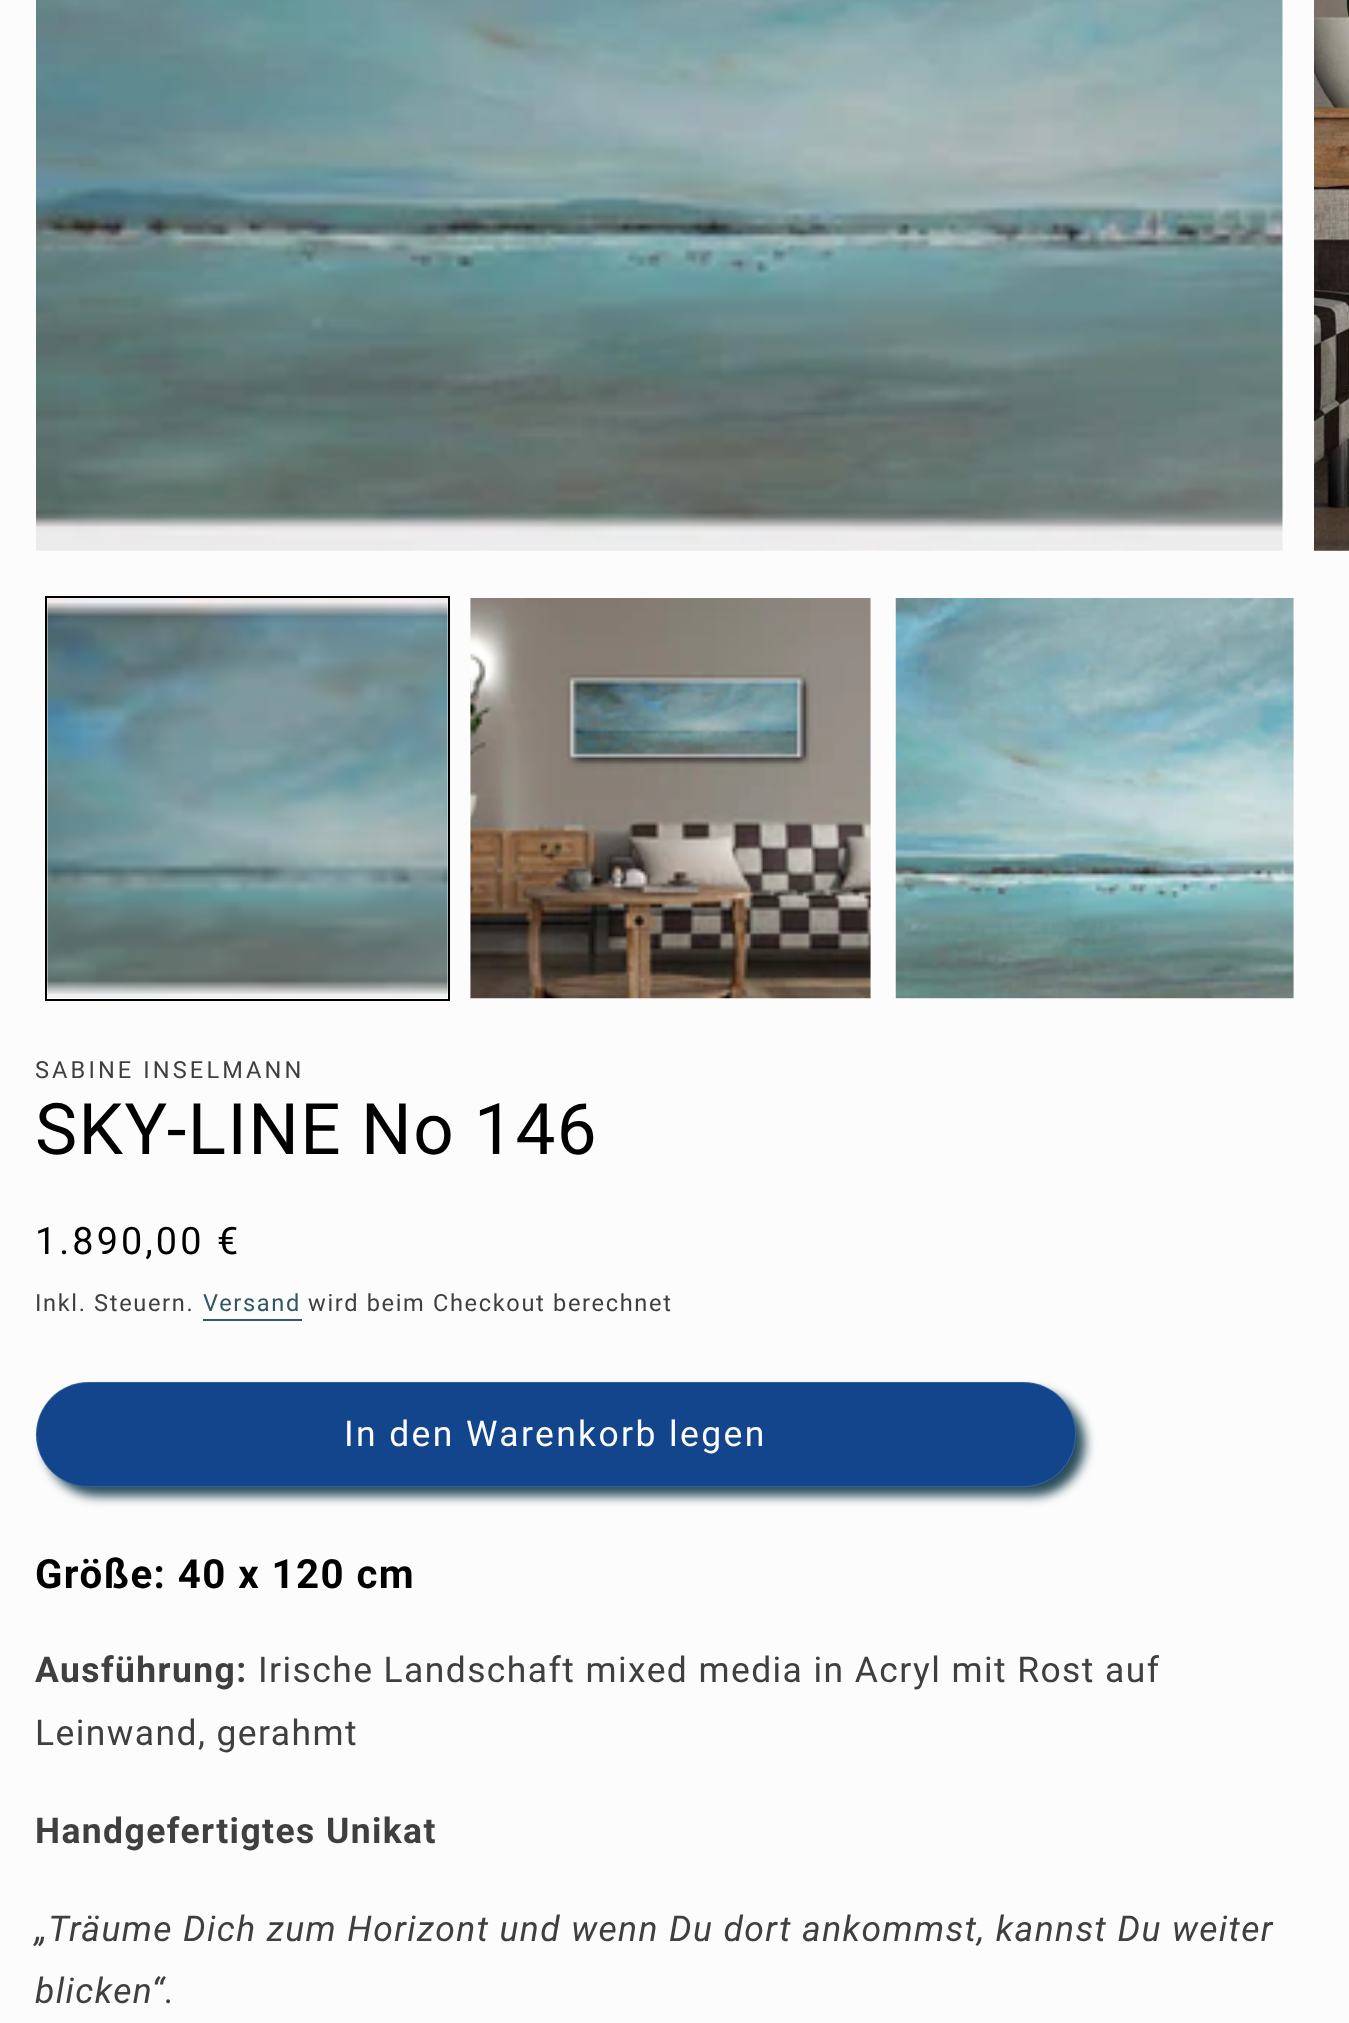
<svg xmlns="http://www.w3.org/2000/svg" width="1349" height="2023">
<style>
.a{font:23.6px Roboto;letter-spacing:3.1px;fill:#3f3f3f}
.b{font:71px Roboto;letter-spacing:1.42px;fill:#000}
.c{font:37.75px Roboto;letter-spacing:3.1px;fill:#000}
.d{font:23.6px Roboto;letter-spacing:1.65px;fill:#3f3f3f}
.e{font:23.6px Roboto;letter-spacing:1.65px;fill:#335663}
.f{font:35.45px Roboto;letter-spacing:2.4px;fill:#fcfcfc}
.g{font:bold 40.25px Roboto;letter-spacing:1.42px;fill:#000}
.h{font:bold 35.45px Roboto;letter-spacing:1.42px;fill:#3f3f3f}
.i{font:35.45px Roboto;letter-spacing:1.42px;fill:#3f3f3f}
.j{font:italic 35.45px Roboto;letter-spacing:1.42px;fill:#3f3f3f}
</style>
<rect width="100%" height="100%" fill="#fcfcfc"/>
<image href="1.png" x="36" y="0" width="1247" height="551"/>
<image href="2.png" x="1314" y="0" width="35" height="551"/>
<path fill="none" stroke="#000" stroke-width="2" d="M46 597h403v403H46z"/>
<image href="3.png" x="47" y="598" width="401" height="400"/>
<image href="4.png" x="470" y="598" width="401" height="401"/>
<image href="5.png" x="895" y="598" width="399" height="401"/>
<path fill="#335663" d="M203 1319h99v2H203z"/>
<rect fill="#103948e6" filter="blur(5.5px)" x="45" y="1391" width="1040" height="105" rx="52.5"/>
<rect fill="#12458c" x="36" y="1382" width="1040" height="105" rx="52.5"/>
<rect fill="none" stroke="#fcfcfc40" stroke-width="0.7" x="36.35" y="1382.35" width="1039.3" height="104.3" rx="52.15"/>
<text class="a" x="35" y="1078">SABINE INSELMANN</text>
<text class="b" x="35" y="1154">SKY-LINE No 146</text>
<text class="c" x="35" y="1254">1.890,00 €</text>
<text class="d" x="35" y="1311">Inkl. Steuern.</text>
<text class="e" x="203" y="1311">Versand</text>
<text class="d" x="308" y="1311">wird beim Checkout berechnet</text>
<text class="f" x="344" y="1446">In den Warenkorb legen</text>
<text class="g" x="35" y="1588">Größe: 40 x 120 cm</text>
<text class="h" x="35" y="1682">Ausführung:</text>
<text class="i" x="258" y="1682">Irische Landschaft mixed media in Acryl mit Rost auf</text>
<text class="i" x="35" y="1745">Leinwand, gerahmt</text>
<text class="h" x="35" y="1843">Handgefertigtes Unikat</text>
<text class="j" x="35" y="1941">„Träume Dich zum Horizont und wenn Du dort ankommst, kannst Du weiter</text>
<text class="j" x="35" y="2003">blicken“.</text>
</svg>
